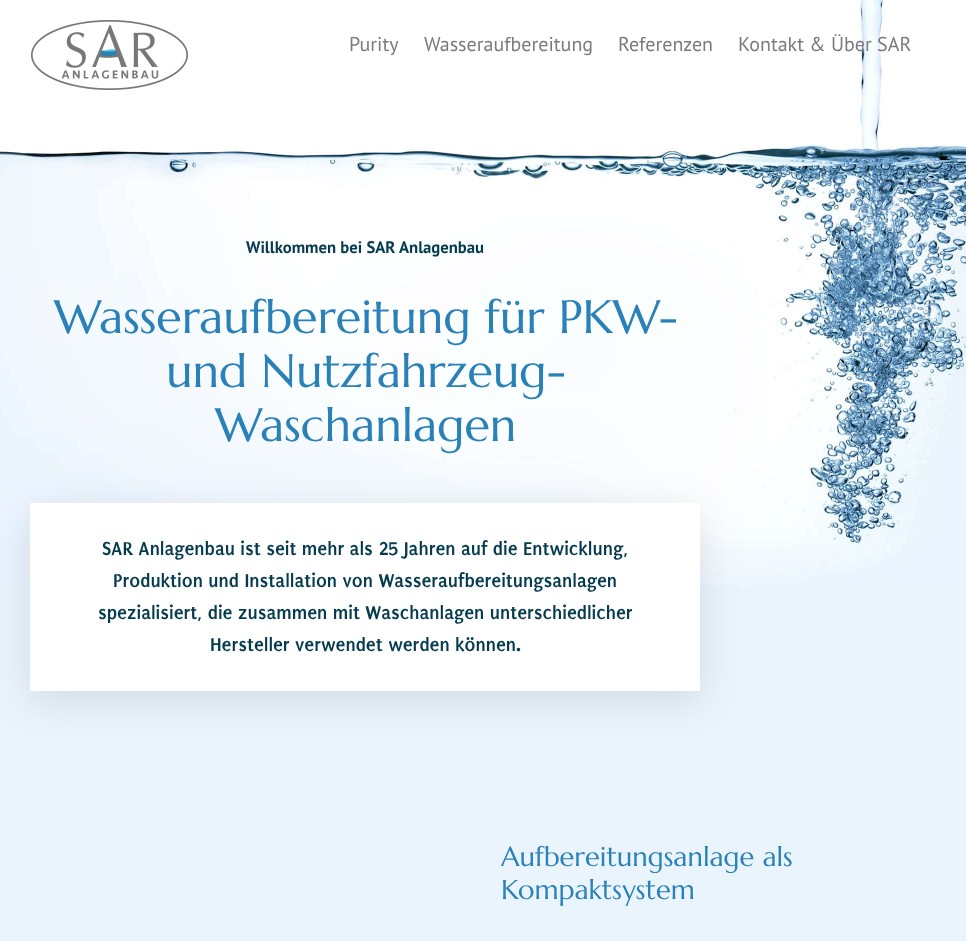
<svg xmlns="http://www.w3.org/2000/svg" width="966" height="941">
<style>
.a{font:20px PT Sans;fill:#7c7b7b}
.b{font:bold 16.7px PT Sans;fill:#053b4f}
.c{font:46.75px Marcellus;fill:#2a81b8}
.d{font:bold 20px Puritan;fill:#053b4f}
.e{font:27.25px Marcellus;fill:#2a81b8}
</style>
<rect width="100%" height="100%" fill="#e9f4fd"/>
<image href="1.png" x="0" y="0" width="966" height="588"/>
<image href="2.png" x="31" y="20" width="157" height="70"/>
<path fill="#0000001a" filter="blur(20px)" d="M30 513h670v188H30z"/>
<path fill="#fff" d="M30 503h670v188H30z"/>
<text class="a" x="349" y="51">Purity</text>
<text class="a" x="424" y="51">Wasseraufbereitung</text>
<text class="a" x="618" y="51">Referenzen</text>
<text class="a" x="738" y="51">Kontakt &amp; Über SAR</text>
<text class="b" x="246" y="253">Willkommen bei SAR Anlagenbau</text>
<text class="c" x="54" y="333">Wasseraufbereitung für PKW-</text>
<text class="c" x="166" y="387">und Nutzfahrzeug-</text>
<text class="c" x="215" y="441">Waschanlagen</text>
<text class="d" x="102" y="555">SAR Anlagenbau ist seit mehr als 25 Jahren auf die Entwicklung,</text>
<text class="d" x="113" y="587">Produktion und Installation von Wasseraufbereitungsanlagen</text>
<text class="d" x="98" y="619">spezialisiert, die zusammen mit Waschanlagen unterschiedlicher</text>
<text class="d" x="210" y="651">Hersteller verwendet werden können.</text>
<text class="e" x="501" y="866">Aufbereitungsanlage als</text>
<text class="e" x="501" y="899">Kompaktsystem</text>
</svg>
